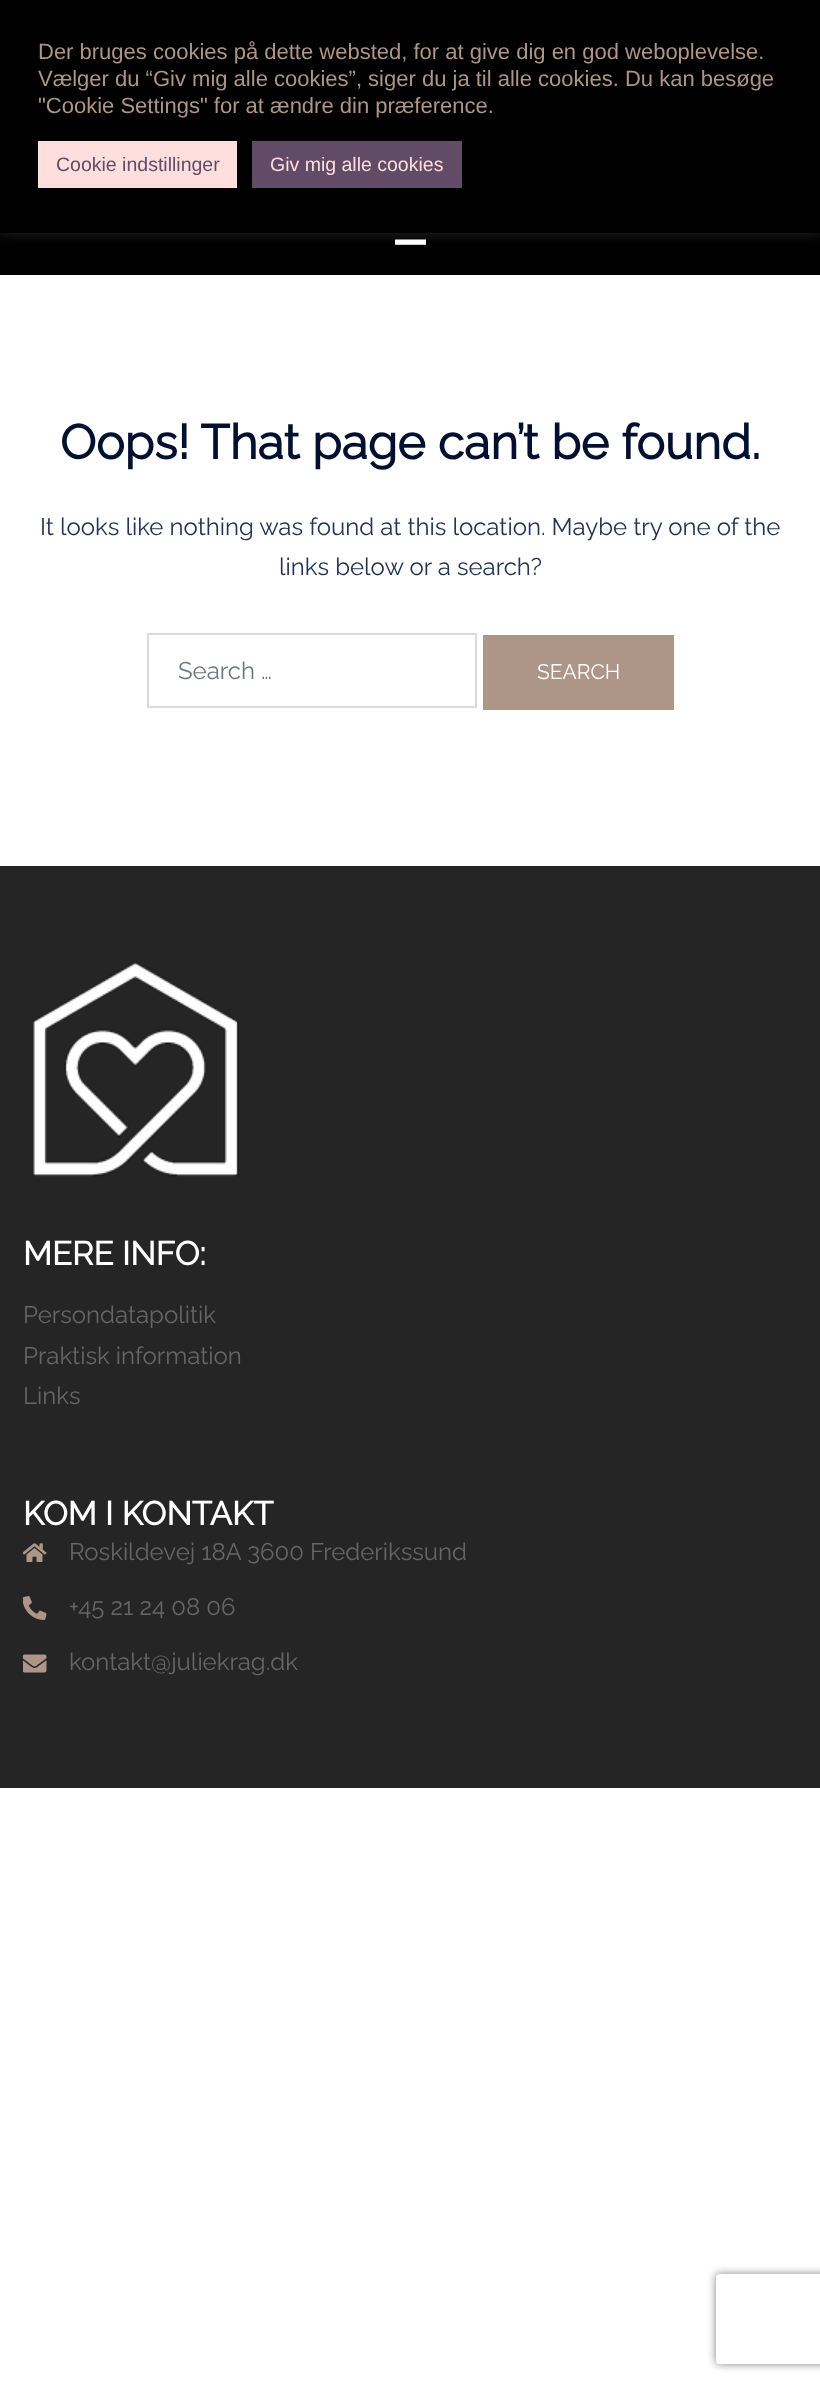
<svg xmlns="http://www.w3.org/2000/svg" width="820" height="2385">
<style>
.a{font:22px Liberation Sans;fill:#ad9587}
.b{font:19.5px Liberation Sans;fill:#614b67}
.c{font:19.5px Liberation Sans;fill:#ffdede}
.d{font:bold 48px Raleway;fill:#00102e}
.e{font:100 24px Raleway;fill:#233452}
.f{font:100 24px Raleway;fill:#6d7685}
.g{font:100 21px Raleway;fill:#fff}
.h{font:bold 33px Raleway;fill:#fff}
.i{font:100 24px Raleway;fill:#666}
</style>
<defs>
<clipPath id="clip1"><path d="M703 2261h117v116h-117zm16 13h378c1.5 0 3 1.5 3 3v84c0 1.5-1.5 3-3 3h-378c-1.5 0-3-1.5-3-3v-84c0-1.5 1.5-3 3-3z" clip-rule="evenodd"/></clipPath>
</defs>
<rect width="100%" height="100%" fill="#fff"/>
<path fill="#000" d="M0 233h820v42H0z"/>
<image href="1.png" x="395" y="239" width="31" height="6"/>
<path fill="#acabab4d" filter="blur(7.5px)" d="M0 -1h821v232H0z"/>
<path fill="#000" d="M0 0h820v233H0z"/>
<path fill="#ffdede" d="M38 141h199v47H38z"/>
<path fill="#614b67" d="M252 141h210v47H252z"/>
<path fill="none" stroke="#dbdbdb" stroke-width="2" d="M148 634h328v73H148z"/>
<path fill="#ad9587" d="M483 635h191v75H483z"/>
<path fill="#252525" d="M0 866h820v922H0z"/>
<image href="2.png" x="33" y="962" width="206" height="215"/>
<image href="3.png" x="23" y="1543" width="24" height="19"/>
<image href="4.png" x="23" y="1596" width="24" height="24"/>
<image href="5.png" x="23" y="1654" width="24" height="19"/>
<g clip-path="url(#clip1)">
<rect fill="#808080" filter="blur(4px)" x="716" y="2274" width="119" height="90" rx="3"/>
</g>
<text class="a" x="38" y="59">Der bruges cookies på dette websted, for at give dig en god weboplevelse.</text>
<text class="a" x="38" y="86">Vælger du “Giv mig alle cookies”, siger du ja til alle cookies. Du kan besøge</text>
<text class="a" x="38" y="113">"Cookie Settings" for at ændre din præference.</text>
<text class="b" x="56" y="171">Cookie indstillinger</text>
<text class="c" x="270" y="171">Giv mig alle cookies</text>
<text class="d" x="60" y="459">Oops! That page can’t be found.</text>
<text class="e" x="40" y="535">It looks like nothing was found at this location. Maybe try one of the</text>
<text class="e" x="279" y="575">links below or a search?</text>
<text class="f" x="178" y="679">Search …</text>
<text class="g" x="537" y="679">SEARCH</text>
<text class="h" x="23" y="1265">MERE INFO:</text>
<text class="i" x="23" y="1323">Persondatapolitik</text>
<text class="i" x="23" y="1364">Praktisk information</text>
<text class="i" x="23" y="1404">Links</text>
<text class="h" x="23" y="1525">KOM I KONTAKT</text>
<text class="i" x="69" y="1560">Roskildevej 18A 3600 Frederikssund</text>
<text class="i" x="69" y="1615">+45 21 24 08 06</text>
<text class="i" x="69" y="1670">kontakt@juliekrag.dk</text>
</svg>
